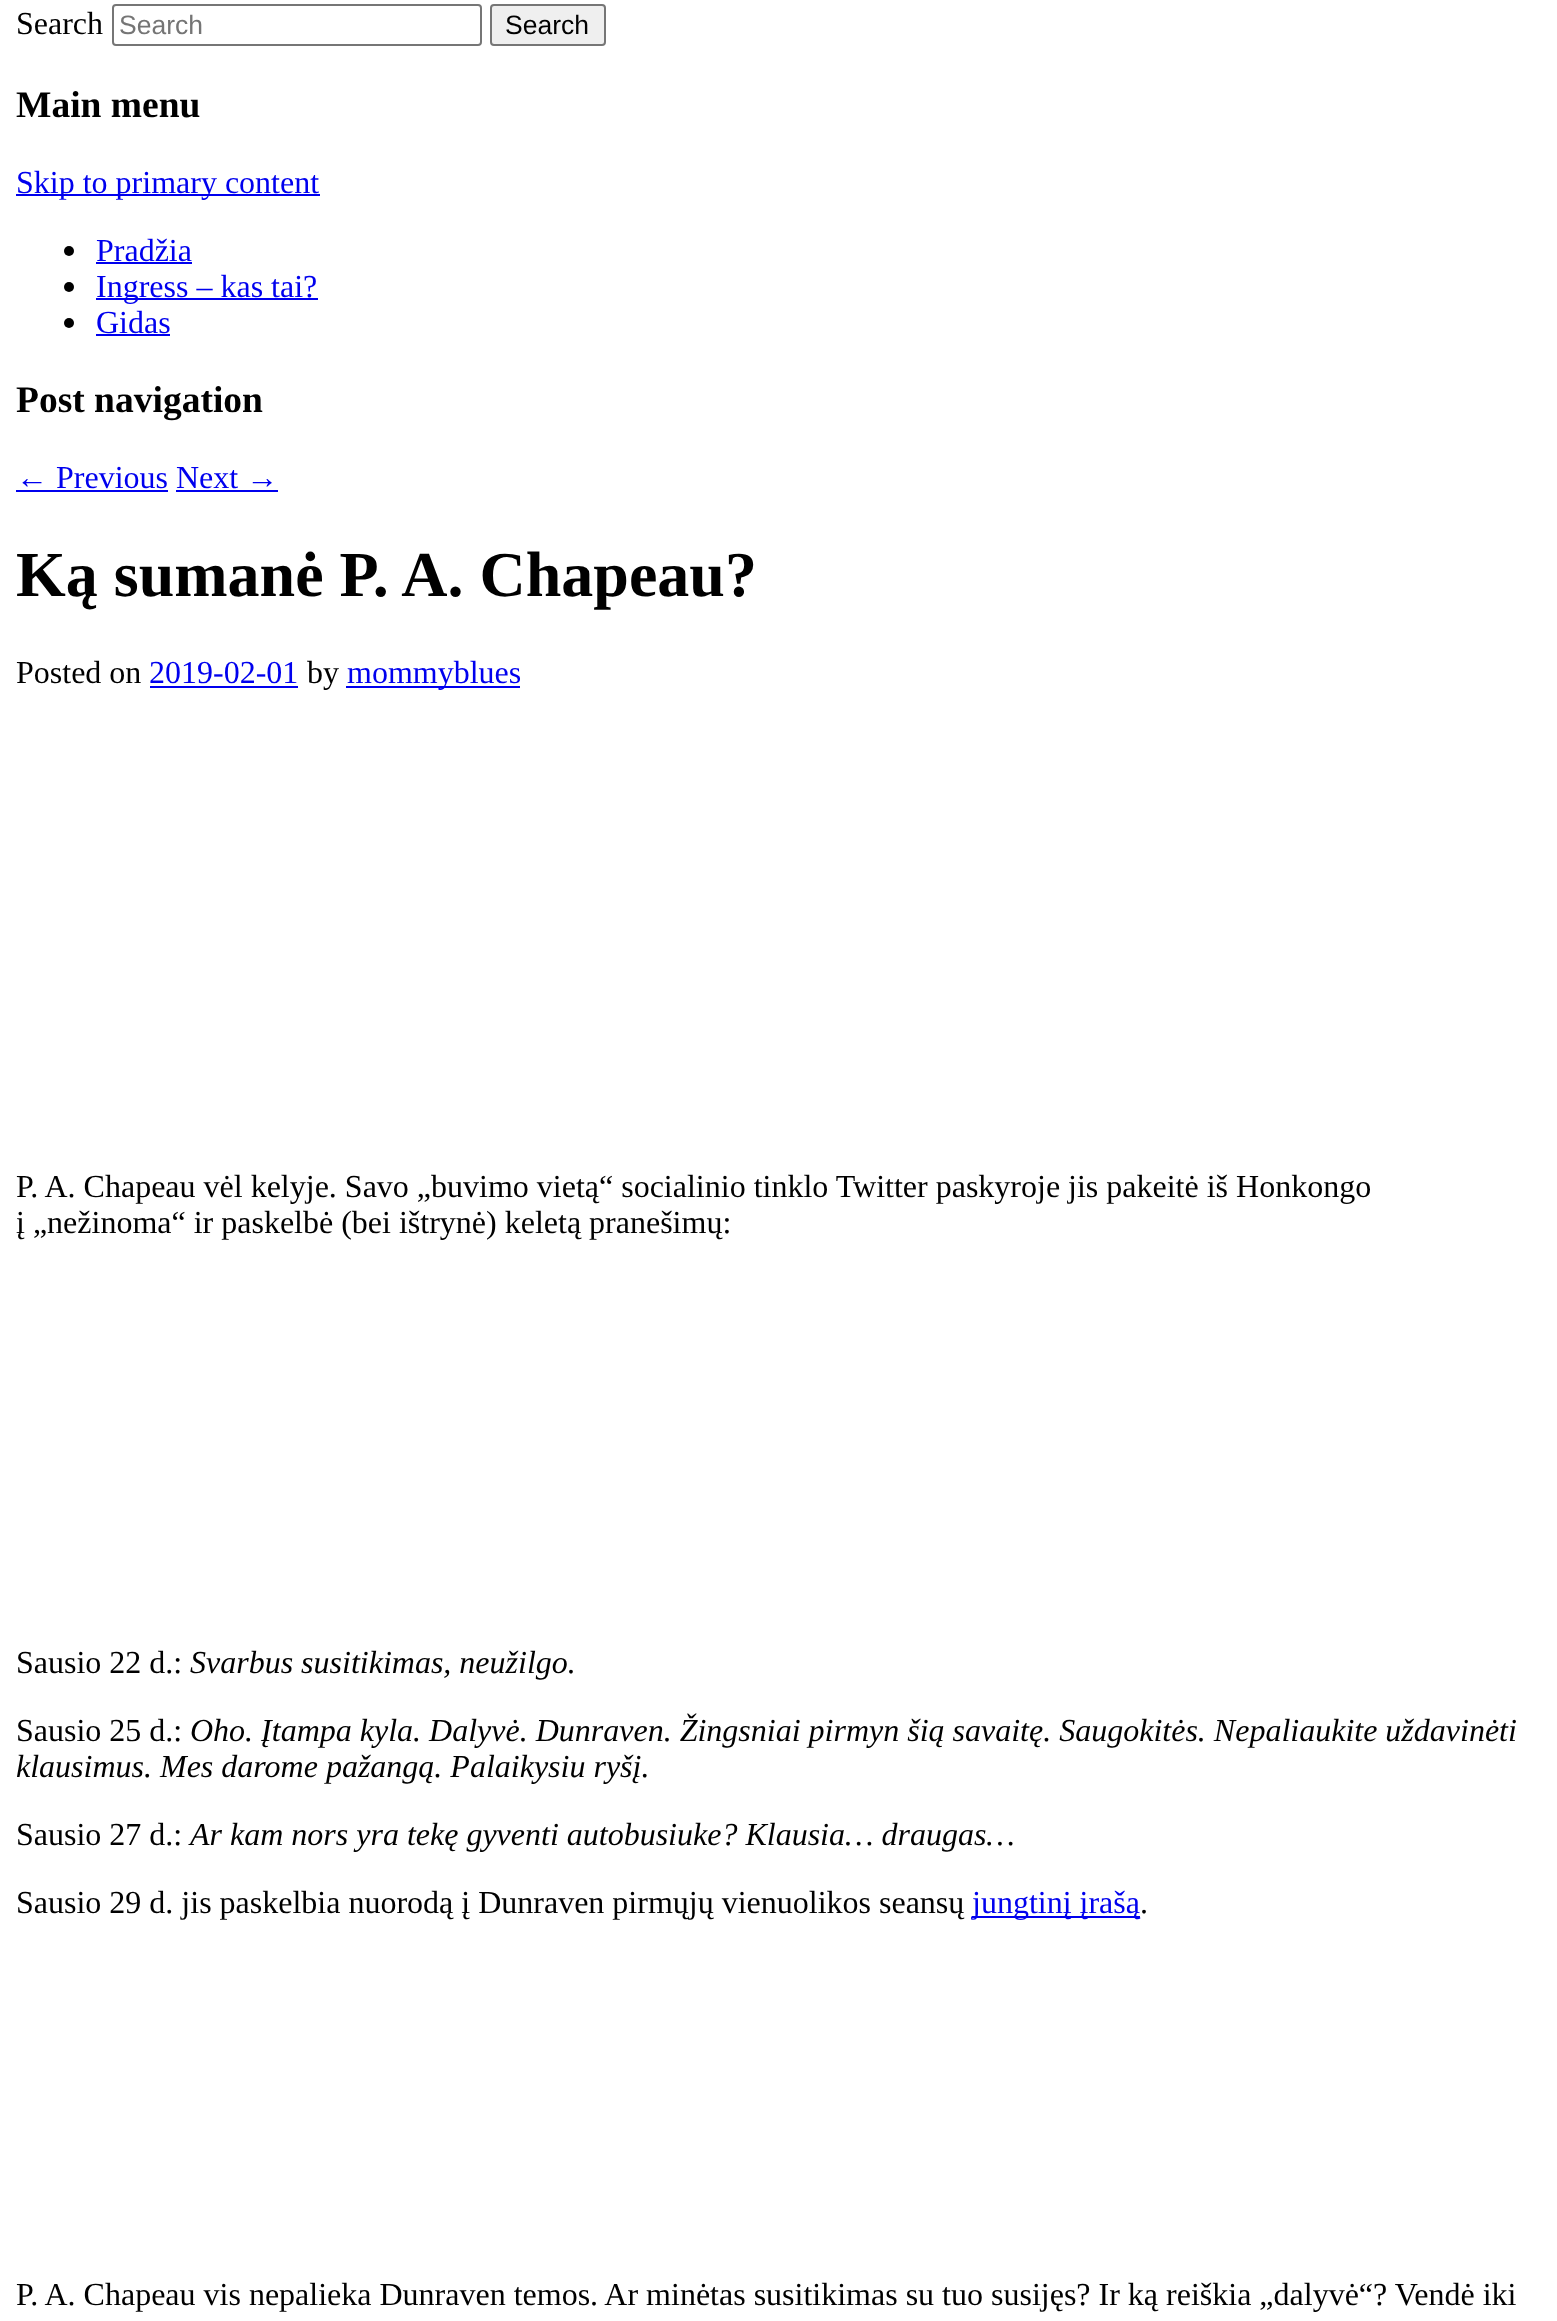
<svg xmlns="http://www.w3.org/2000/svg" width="1557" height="2321">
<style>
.a{font:32px Liberation Serif;fill:#000}
.b{font:26.5px Liberation Sans;fill:#757575}
.c{font:26.5px Liberation Sans;fill:#000}
.d{font:bold 37.5px Liberation Serif;fill:#000}
.e{font:32px Liberation Serif;fill:#00e}
.f{font:bold 64px Liberation Serif;fill:#000}
.g{font:italic 32px Liberation Serif;fill:#000}
</style>
<rect width="100%" height="100%" fill="#fff"/>
<rect fill="none" stroke="#767676" stroke-width="2" x="113" y="5" width="368" height="40" rx="3"/>
<rect fill="#efefef" stroke="#767676" stroke-width="2" x="491" y="5" width="114" height="40" rx="3"/>
<path fill="#00e" d="M16 194h304v2H16z"/>
<circle fill="#000" cx="69" cy="251" r="5"/>
<path fill="#00e" d="M96 262h96v2H96z"/>
<circle fill="#000" cx="69" cy="287" r="5"/>
<path fill="#00e" d="M96 298h222v2H96z"/>
<circle fill="#000" cx="69" cy="323" r="5"/>
<path fill="#00e" d="M96 334h74v2H96z"/>
<path fill="#00e" d="M16 490h152v2H16z"/>
<path fill="#00e" d="M176 490h102v2H176z"/>
<path fill="#00e" d="M150 686h148v2H150z"/>
<path fill="#00e" d="M346 686h174v2H346z"/>
<path fill="#00e" d="M972 1916h168v2H972z"/>
<text class="a" x="16" y="34">Search</text>
<text class="b" x="119" y="34">Search</text>
<text class="c" x="505" y="34">Search</text>
<text class="d" x="16" y="117">Main menu</text>
<text class="e" x="16" y="193">Skip to primary content</text>
<text class="e" x="96" y="261">Pradžia</text>
<text class="e" x="96" y="297">Ingress – kas tai?</text>
<text class="e" x="96" y="333">Gidas</text>
<text class="d" x="16" y="412">Post navigation</text>
<text class="e" x="16" y="488">← Previous Next →</text>
<text class="f" x="16" y="596">Ką sumanė P. A. Chapeau?</text>
<text class="a" x="16" y="683">Posted on</text>
<text class="e" x="149" y="683">2019-02-01</text>
<text class="a" x="307" y="683">by</text>
<text class="e" x="347" y="683">mommyblues</text>
<text class="a" x="16" y="1197">P. A. Chapeau vėl kelyje. Savo „buvimo vietą“ socialinio tinklo Twitter paskyroje jis pakeitė iš Honkongo</text>
<text class="a" x="16" y="1233">į „nežinoma“ ir paskelbė (bei ištrynė) keletą pranešimų:</text>
<text class="a" x="16" y="1673">Sausio 22 d.:</text>
<text class="g" x="190" y="1673">Svarbus susitikimas, neužilgo.</text>
<text class="a" x="16" y="1741">Sausio 25 d.:</text>
<text class="g" x="190" y="1741">Oho. Įtampa kyla. Dalyvė. Dunraven. Žingsniai pirmyn šią savaitę. Saugokitės. Nepaliaukite uždavinėti</text>
<text class="g" x="16" y="1777">klausimus. Mes darome pažangą. Palaikysiu ryšį.</text>
<text class="a" x="16" y="1845">Sausio 27 d.:</text>
<text class="g" x="190" y="1845">Ar kam nors yra tekę gyventi autobusiuke? Klausia… draugas…</text>
<text class="a" x="16" y="1913">Sausio 29 d. jis paskelbia nuorodą į Dunraven pirmųjų vienuolikos seansų</text>
<text class="e" x="972" y="1913">jungtinį įrašą</text>
<text class="a" x="1140" y="1913">.</text>
<text class="a" x="16" y="2305">P. A. Chapeau vis nepalieka Dunraven temos. Ar minėtas susitikimas su tuo susijęs? Ir ką reiškia „dalyvė“? Vendė iki</text>
</svg>
